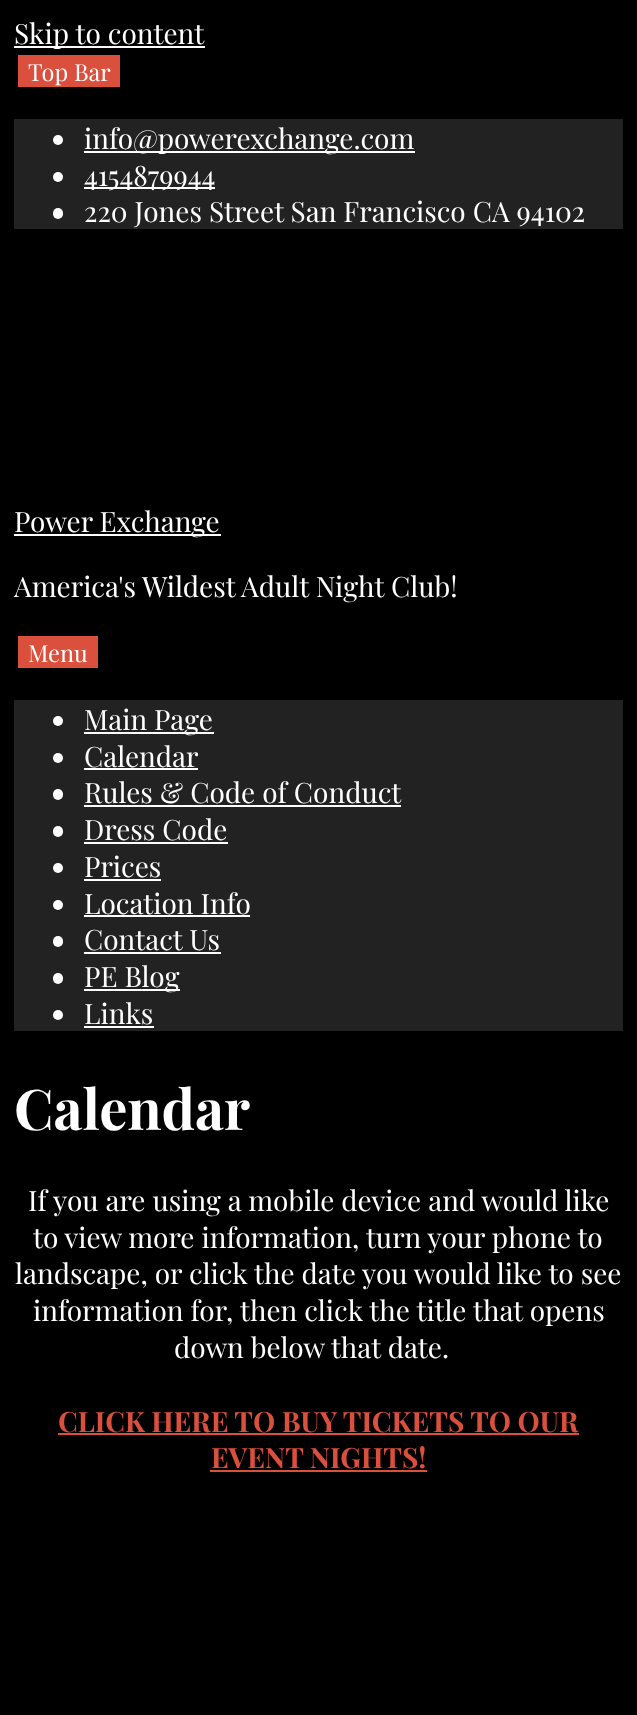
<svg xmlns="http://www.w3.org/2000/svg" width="637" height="1715">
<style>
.a{font:28px Playfair Display;fill:#fff}
.b{font:23.5px Playfair Display;fill:#fff}
.c{font:bold 56px Playfair Display;fill:#fff}
.d{font:bold 28px Playfair Display;fill:#db4f3d}
</style>
<rect width="100%" height="100%" fill="#000"/>
<path fill="#fff" d="M14 46h191v2H14z"/>
<path fill="#db4f3d" d="M18 55h102v32H18z"/>
<path fill="#222" d="M14 119h609v110H14z"/>
<circle fill="#fff" cx="58" cy="140" r="5"/>
<path fill="#fff" d="M84 151h331v2H84z"/>
<circle fill="#fff" cx="58" cy="177" r="5"/>
<path fill="#fff" d="M84 187h131v2H84z"/>
<rect fill="#fff" x="53" y="208" width="10" height="11" rx="5"/>
<path fill="#fff" d="M14 534h207v2H14z"/>
<path fill="#db4f3d" d="M18 636h80v32H18z"/>
<path fill="#222" d="M14 700h609v331H14z"/>
<circle fill="#fff" cx="58" cy="721" r="5"/>
<path fill="#fff" d="M84 732h130v2H84z"/>
<circle fill="#fff" cx="58" cy="758" r="5"/>
<path fill="#fff" d="M84 768h114v2H84z"/>
<rect fill="#fff" x="53" y="789" width="10" height="11" rx="5"/>
<path fill="#fff" d="M84 805h317v2H84z"/>
<rect fill="#fff" x="53" y="826" width="10" height="11" rx="5"/>
<path fill="#fff" d="M84 842h144v2H84z"/>
<circle fill="#fff" cx="58" cy="868" r="5"/>
<path fill="#fff" d="M84 879h77v2H84z"/>
<circle fill="#fff" cx="58" cy="905" r="5"/>
<path fill="#fff" d="M84 915h166v2H84z"/>
<rect fill="#fff" x="53" y="936" width="10" height="11" rx="5"/>
<path fill="#fff" d="M84 952h137v2H84z"/>
<rect fill="#fff" x="53" y="973" width="10" height="11" rx="5"/>
<path fill="#fff" d="M84 989h96v2H84z"/>
<circle fill="#fff" cx="58" cy="1015" r="5"/>
<path fill="#fff" d="M84 1026h70v2H84z"/>
<path fill="#db4f3d" d="M58 1433h521v2H58z"/>
<path fill="#db4f3d" d="M210 1470h217v2H210z"/>
<text class="a" x="14" y="44">Skip to content</text>
<text class="b" x="28" y="81">Top Bar</text>
<text class="a" x="84" y="149">info@powerexchange.com</text>
<text class="a" x="84" y="186">4154879944</text>
<text class="a" x="84" y="222">220 Jones Street San Francisco CA 94102</text>
<text class="a" x="14" y="532">Power Exchange</text>
<text class="a" x="14" y="597">America's Wildest Adult Night Club!</text>
<text class="b" x="28" y="662">Menu</text>
<text class="a" x="84" y="730">Main Page</text>
<text class="a" x="84" y="767">Calendar</text>
<text class="a" x="84" y="803">Rules &amp; Code of Conduct</text>
<text class="a" x="84" y="840">Dress Code</text>
<text class="a" x="84" y="877">Prices</text>
<text class="a" x="84" y="914">Location Info</text>
<text class="a" x="84" y="950">Contact Us</text>
<text class="a" x="84" y="987">PE Blog</text>
<text class="a" x="84" y="1024">Links</text>
<text class="c" x="14" y="1130">Calendar</text>
<text class="a" x="28" y="1211">If you are using a mobile device and would like</text>
<text class="a" x="33" y="1248">to view more information, turn your phone to</text>
<text class="a" x="15" y="1284">landscape, or click the date you would like to see</text>
<text class="a" x="33" y="1321">information for, then click the title that opens</text>
<text class="a" x="174" y="1358">down below that date.</text>
<text class="d" x="58" y="1432">CLICK HERE TO BUY TICKETS TO OUR</text>
<text class="d" x="211" y="1468">EVENT NIGHTS!</text>
</svg>
